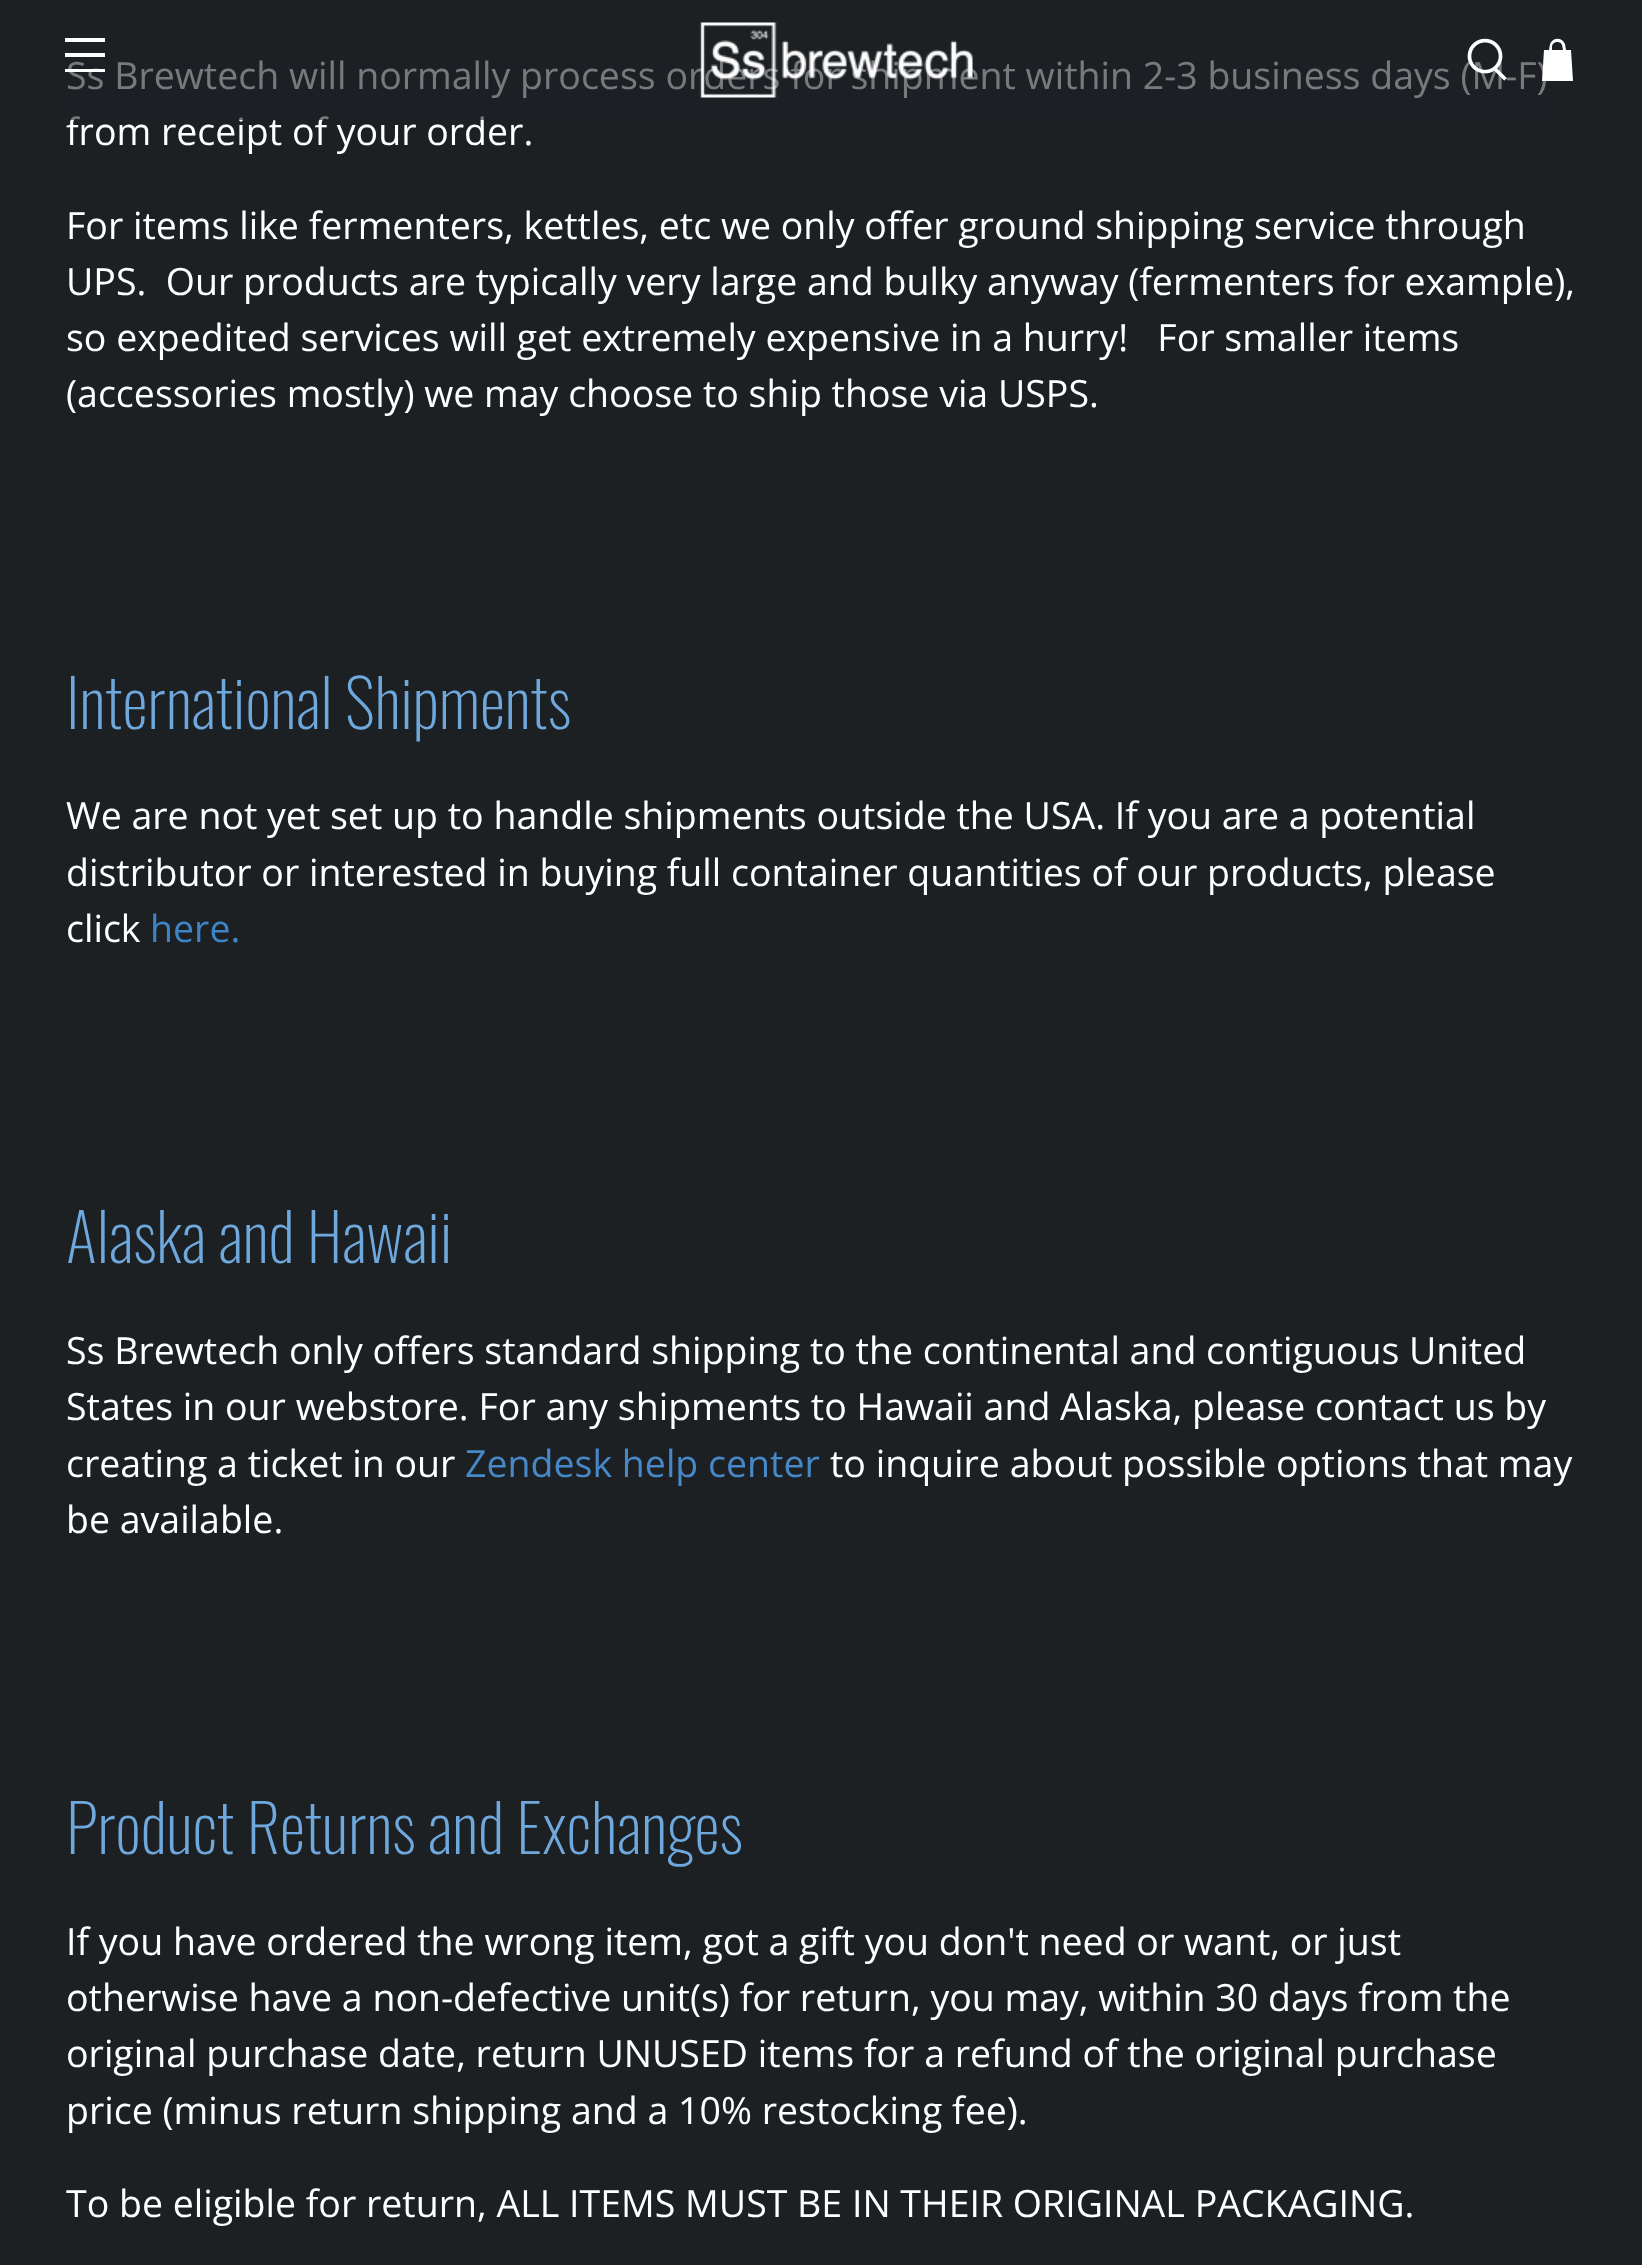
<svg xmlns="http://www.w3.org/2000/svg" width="1642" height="2265">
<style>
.a{font:37.5px Open Sans;fill:#fff}
.b{font:200 65.6px Oswald;fill:#6fa8dc}
.c{font:37.5px Open Sans;fill:#3d85c6}
.d{font:37.5px Open Sans;fill:#4788c8}
</style>
<rect width="100%" height="100%" fill="#1c2023"/>
<path fill="#fff" d="M65 38h40v4H65z"/>
<path fill="#fff" d="M65 53h40v4H65z"/>
<text class="a" x="66" y="89">Ss Brewtech will normally process orders for shipment within 2-3 business days (M-F)</text>
<text class="a" x="66" y="145">from receipt of your order.</text>
<path fill="#1c202399" d="M67 60h1480v60H67z"/>
<path fill="#fff" d="M1571 50h-5l-1-6c-3-7-12-7-15 0l-1 6h-5l-2 31h31zm-19-3c0-5 8-7 10-2l1 5h-11z"/>
<image href="2.png" x="1467" y="38" width="40" height="43"/>
<image href="1.png" x="699" y="22" width="274" height="76"/>
<path fill="#fff" d="M65 69h40v3H65z"/>
<text class="a" x="66" y="239">For items like fermenters, kettles, etc we only offer ground shipping service through</text>
<text class="a" xml:space="preserve" x="66" y="295">UPS.  Our products are typically very large and bulky anyway (fermenters for example),</text>
<text class="a" xml:space="preserve" x="66" y="351">so expedited services will get extremely expensive in a hurry!   For smaller items</text>
<text class="a" x="66" y="407">(accessories mostly) we may choose to ship those via USPS.</text>
<text class="b" x="66" y="729">International Shipments</text>
<text class="a" x="66" y="829">We are not yet set up to handle shipments outside the USA. If you are a potential</text>
<text class="a" x="66" y="886">distributor or interested in buying full container quantities of our products, please</text>
<text class="a" x="66" y="942">click</text>
<text class="c" x="150" y="942">here.</text>
<text class="b" x="66" y="1263">Alaska and Hawaii</text>
<text class="a" x="66" y="1364">Ss Brewtech only offers standard shipping to the continental and contiguous United</text>
<text class="a" x="66" y="1420">States in our webstore. For any shipments to Hawaii and Alaska, please contact us by</text>
<text class="a" x="66" y="1477">creating a ticket in our</text>
<text class="d" x="465" y="1477">Zendesk help center</text>
<text class="a" x="830" y="1477">to inquire about possible options that may</text>
<text class="a" x="66" y="1533">be available.</text>
<text class="b" x="66" y="1854">Product Returns and Exchanges</text>
<text class="a" x="66" y="1955">If you have ordered the wrong item, got a gift you don't need or want, or just</text>
<text class="a" x="66" y="2011">otherwise have a non-defective unit(s) for return, you may, within 30 days from the</text>
<text class="a" x="66" y="2067">original purchase date, return UNUSED items for a refund of the original purchase</text>
<text class="a" x="66" y="2124">price (minus return shipping and a 10% restocking fee).</text>
<text class="a" x="66" y="2217">To be eligible for return, ALL ITEMS MUST BE IN THEIR ORIGINAL PACKAGING.</text>
</svg>
